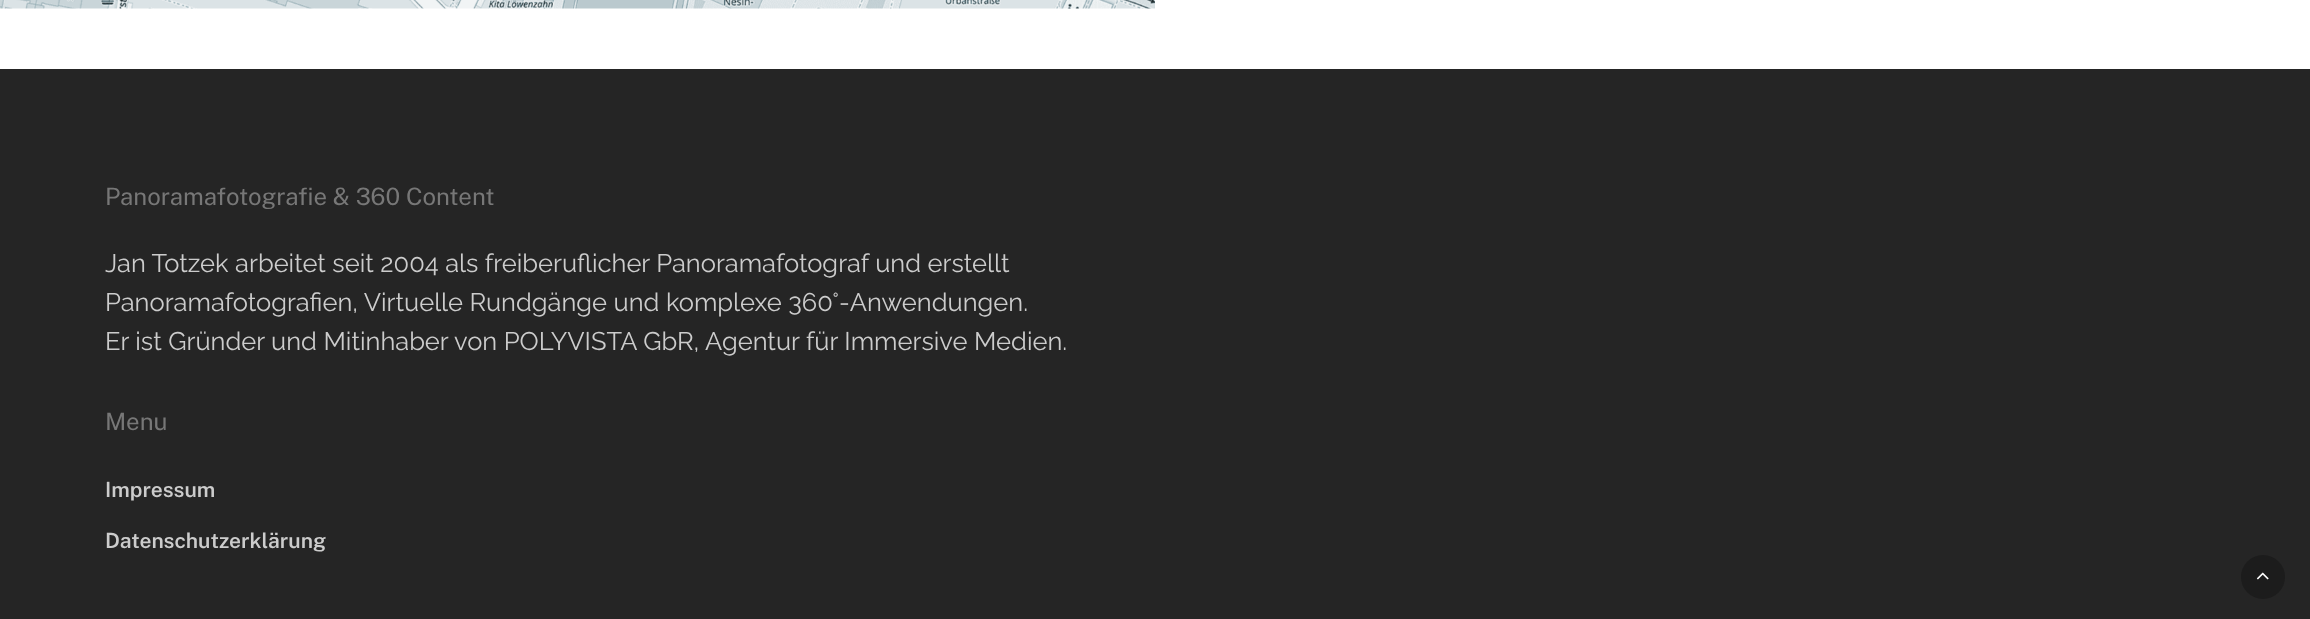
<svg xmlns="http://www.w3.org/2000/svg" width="2310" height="619">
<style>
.a{font:24px Public Sans;fill:#777}
.b{font:25.5px Raleway;fill:#ccc}
.c{font:600 21px Public Sans;fill:#ccc}
</style>
<rect width="100%" height="100%" fill="#fff"/>
<image href="1.png" x="0" y="0" width="1155" height="9"/>
<path fill="#252525" d="M0 69h2310v550H0z"/>
<circle fill="#1c1c1c" cx="2263" cy="577" r="22"/>
<image href="2.png" x="2256" y="572" width="13" height="8"/>
<text class="a" x="105" y="205">Panoramafotografie &amp; 360 Content</text>
<text class="b" x="105" y="272">Jan Totzek arbeitet seit 2004 als freiberuflicher Panoramafotograf und erstellt</text>
<text class="b" x="105" y="311">Panoramafotografien, Virtuelle Rundgänge und komplexe 360°-Anwendungen.</text>
<text class="b" x="105" y="350">Er ist Gründer und Mitinhaber von POLYVISTA GbR, Agentur für Immersive Medien.</text>
<text class="a" x="105" y="430">Menu</text>
<text class="c" x="105" y="497">Impressum</text>
<text class="c" x="105" y="548">Datenschutzerklärung</text>
</svg>
